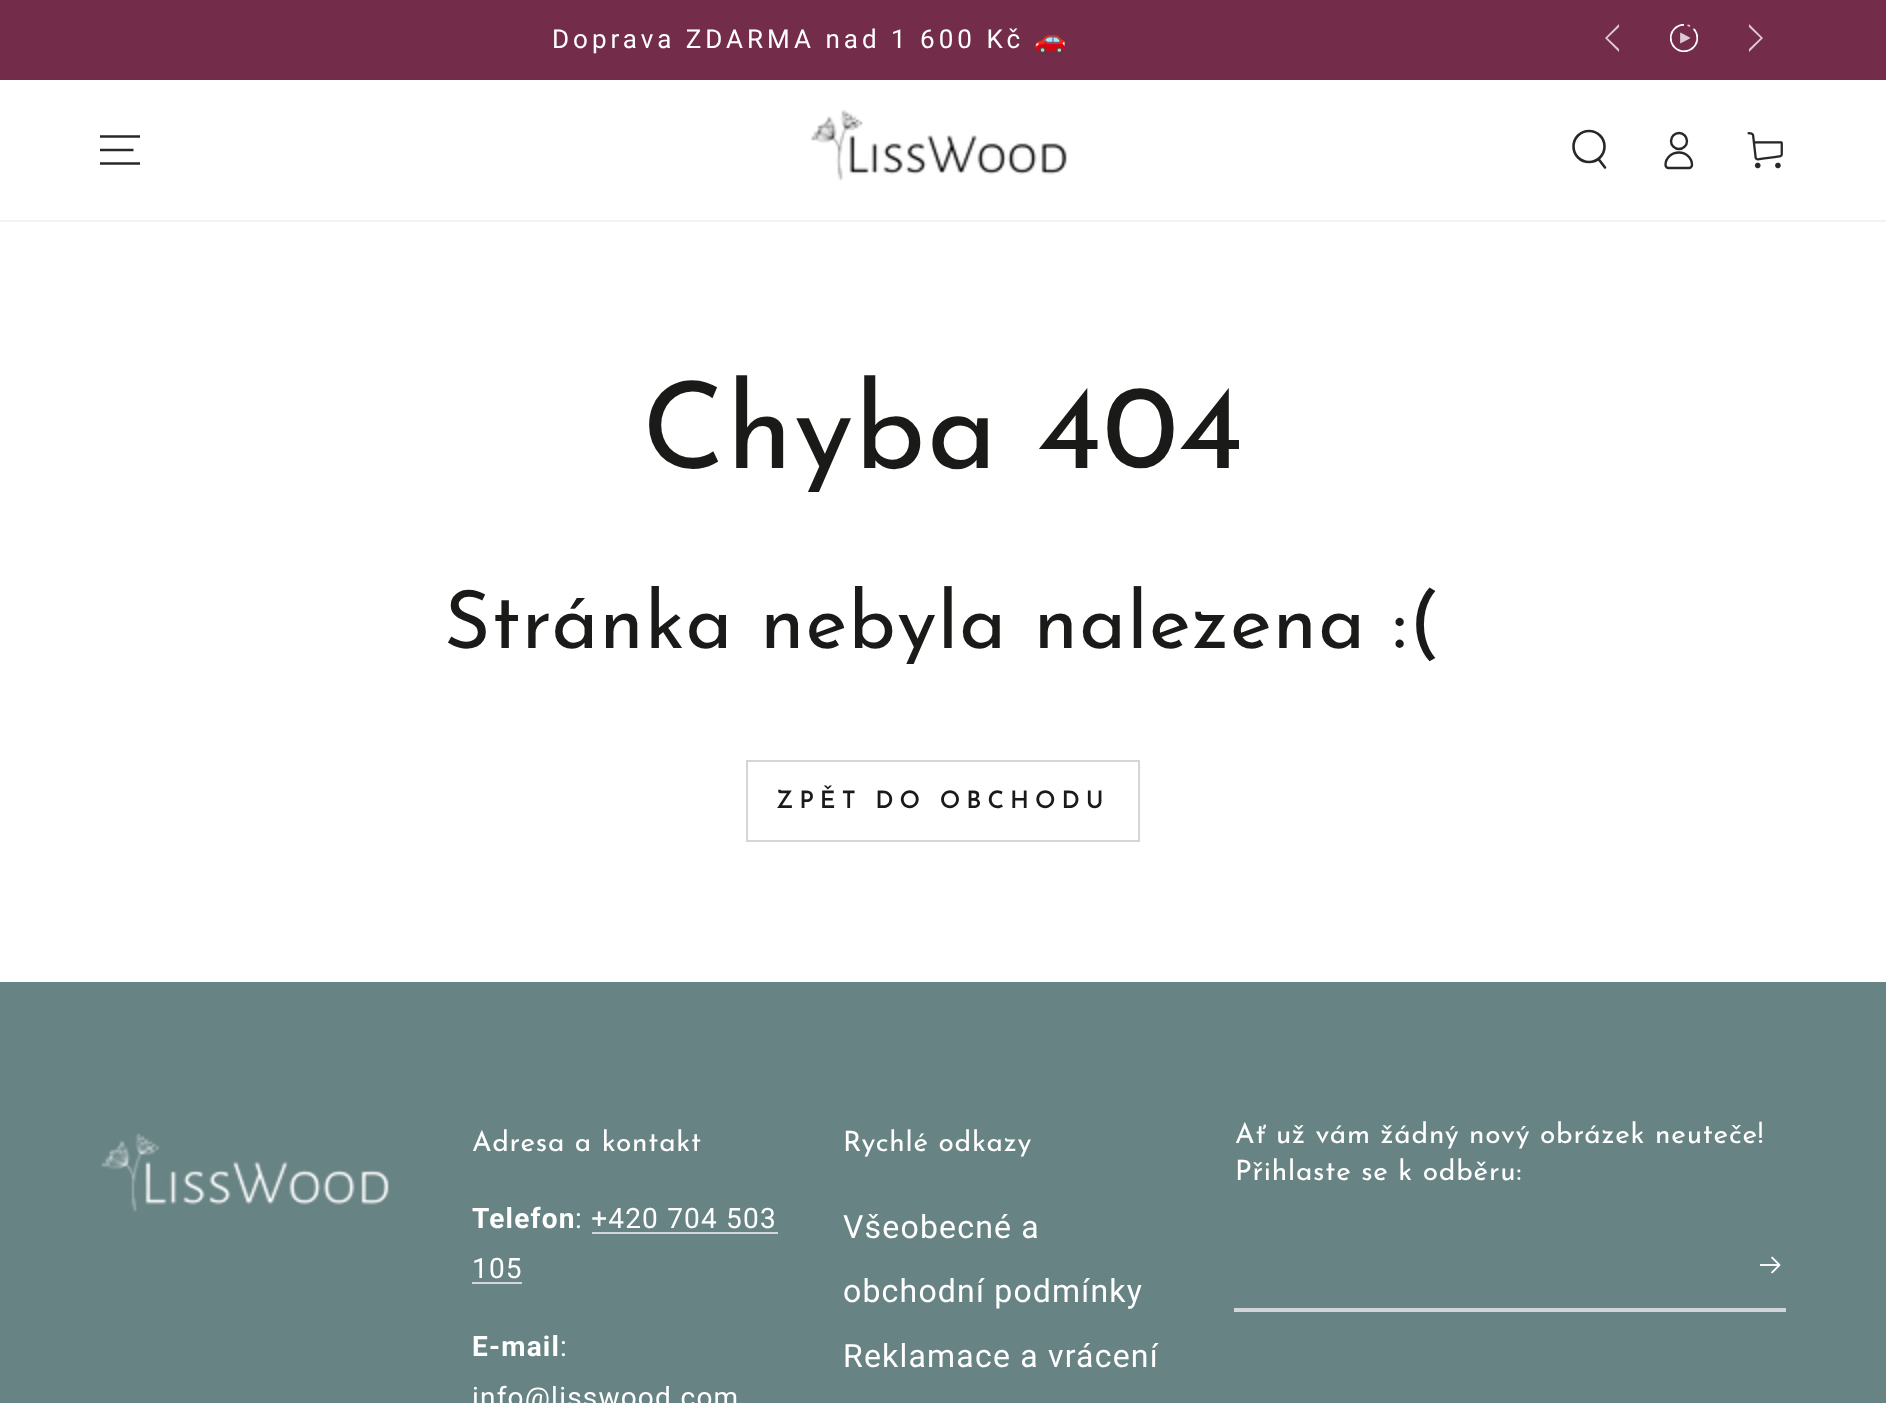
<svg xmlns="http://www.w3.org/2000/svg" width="1886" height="1403">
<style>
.a{font:26px Roboto;letter-spacing:4px;fill:#fff}
.b{font:26px Noto Color Emoji;letter-spacing:4px;fill:#fff}
.c{font:120px Josefin Sans;letter-spacing:1.2px;fill:#1a1b18}
.d{font:80px Josefin Sans;letter-spacing:1.2px;fill:#1a1b18}
.e{font:600 24px Josefin Sans;letter-spacing:6px;fill:#1a1b18}
.f{font:28px Josefin Sans;letter-spacing:0.8px;fill:#fff}
.g{font:bold 28px Roboto;letter-spacing:1.2px;fill:#fff}
.h{font:28px Roboto;letter-spacing:1.2px;fill:#fff}
.i{font:32px Roboto;letter-spacing:1.2px;fill:#fff}
</style>
<rect width="100%" height="100%" fill="#fff"/>
<path fill="#732d4a" d="M0 0h1886v80H0z"/>
<path fill="#dccbd2" fill-rule="evenodd" d="M1605 38l14 14v-3l-11.5-11l11.5-11v-3z"/>
<image href="1.png" x="1670" y="24" width="28" height="28"/>
<path fill="#dccbd2" fill-rule="evenodd" d="M1763 38l-14 14v-3l11.5-11l-11.5-11v-3z"/>
<path fill="#f2f2f4" d="M0 220h1886v2H0z"/>
<path fill="none" stroke="#282828" stroke-width="2.5" d="M100 163.5h40m-40-13.5h33.5m-33.5-13.5h40"/>
<image href="2.png" x="810" y="109" width="257" height="72"/>
<circle fill="none" stroke="#282828" stroke-width="2.6" cx="1589" cy="146.5" r="15.5"/>
<path fill="none" stroke="#282828" stroke-width="2.6" stroke-linecap="round" d="M1598.5 159l6.5 8.5"/>
<path fill="none" stroke="#282828" stroke-width="2.4" d="M1679 152.5c-7.5 0-13.5 5.5-13.5 12.5c0 1.5 1.5 3 3 3h20.5c1.5 0 3-1.5 3-3c0-7-6-12.5-13-12.5z"/>
<circle fill="none" stroke="#282828" stroke-width="2.4" cx="1679" cy="141" r="8"/>
<image href="3.png" x="1747" y="132" width="36" height="37"/>
<path fill="none" stroke="#d2d5d9" stroke-width="2" d="M747 761h392v80H747z"/>
<path fill="#688384" d="M0 982h1886v421H0z"/>
<image href="4.png" x="101" y="1133" width="288" height="79"/>
<path fill="#d2d5d9" d="M592 1232h186v2H592z"/>
<path fill="#d2d5d9" d="M472 1282h50v2H472z"/>
<image href="5.png" x="1760" y="1256" width="21" height="18"/>
<path fill="#d2d5d9" d="M1234 1308h552v4H1234z"/>
<text class="a" x="552" y="48">Doprava ZDARMA nad 1 600 Kč</text>
<text class="b" x="1034" y="48">🚗</text>
<text class="c" x="642" y="468">Chyba 404</text>
<text class="d" x="444" y="648">Stránka nebyla nalezena :(</text>
<text class="e" x="776" y="808">ZPĚT DO OBCHODU</text>
<text class="f" x="472" y="1151">Adresa a kontakt</text>
<text class="g" x="472" y="1228">Telefon</text>
<text class="h" x="575" y="1228">: +420 704 503</text>
<text class="h" x="472" y="1278">105</text>
<text class="g" x="472" y="1356">E-mail</text>
<text class="h" x="560" y="1356">:</text>
<text class="h" x="472" y="1407">info@lisswood.com</text>
<text class="f" x="843" y="1151">Rychlé odkazy</text>
<text class="i" x="843" y="1238">Všeobecné a</text>
<text class="i" x="843" y="1302">obchodní podmínky</text>
<text class="i" x="843" y="1367">Reklamace a vrácení</text>
<text class="f" x="1235" y="1143">Ať už vám žádný nový obrázek neuteče!</text>
<text class="f" x="1235" y="1180">Přihlaste se k odběru:</text>
</svg>
